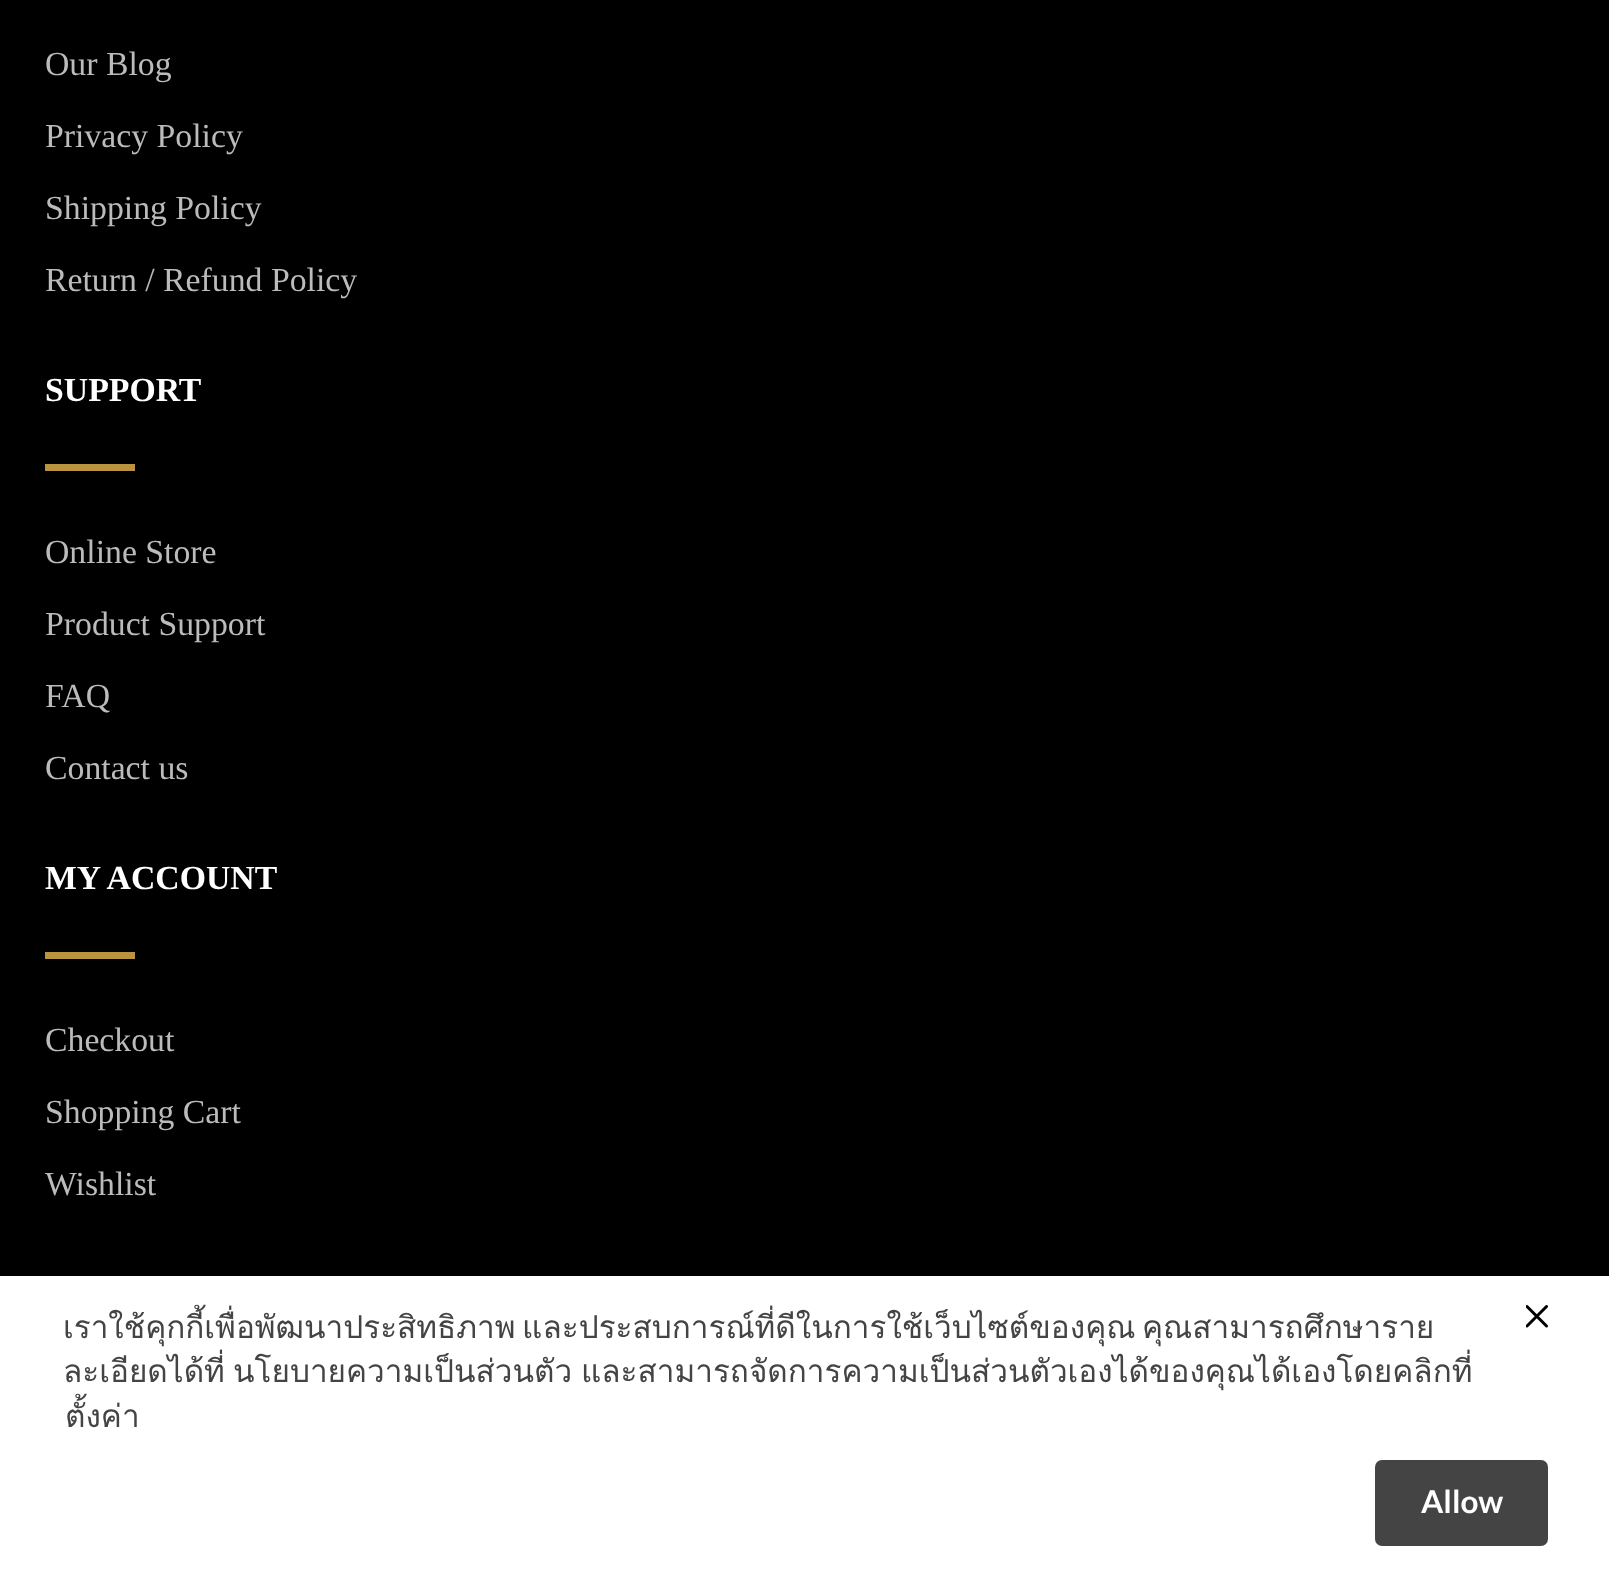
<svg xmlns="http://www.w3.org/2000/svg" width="1609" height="1573">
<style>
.a{font:33.75px Liberation Serif;fill:#bbb}
.b{font:bold 33.75px Liberation Serif;fill:#fff}
.c{font:31.5px Loma;fill:#444}
.d{font:bold 31.5px Lato;fill:#fff}
</style>
<rect width="100%" height="100%" fill="#000"/>
<path fill="#ba933e" d="M45 464h90v7H45z"/>
<path fill="#ba933e" d="M45 952h90v7H45z"/>
<path fill="#fff" d="M0 1276h1609v297H0z"/>
<image href="1.png" x="1526" y="1305" width="22" height="23"/>
<rect fill="#444" x="1375" y="1460" width="173" height="86" rx="7"/>
<text class="a" x="45" y="75">Our Blog</text>
<text class="a" x="45" y="147">Privacy Policy</text>
<text class="a" x="45" y="219">Shipping Policy</text>
<text class="a" x="45" y="291">Return / Refund Policy</text>
<text class="b" x="45" y="401">SUPPORT</text>
<text class="a" x="45" y="563">Online Store</text>
<text class="a" x="45" y="635">Product Support</text>
<text class="a" x="45" y="707">FAQ</text>
<text class="a" x="45" y="779">Contact us</text>
<text class="b" x="45" y="889">MY ACCOUNT</text>
<text class="a" x="45" y="1051">Checkout</text>
<text class="a" x="45" y="1123">Shopping Cart</text>
<text class="a" x="45" y="1195">Wishlist</text>
<text class="c" x="63" y="1338" word-spacing="-4">เราใช้คุกกี้เพื่อพัฒนาประสิทธิภาพ และประสบการณ์ที่ดีในการใช้เว็บไซต์ของคุณ คุณสามารถศึกษาราย</text>
<text class="c" x="63" y="1382">ละเอียดได้ที่</text>
<text class="c" x="233" y="1382">นโยบายความเป็นส่วนตัว</text>
<text class="c" x="581" y="1382">และสามารถจัดการความเป็นส่วนตัวเองได้ของคุณได้เองโดยคลิกที่</text>
<text class="c" x="65" y="1427">ตั้งค่า</text>
<text class="d" x="1421" y="1513">Allow</text>
</svg>
